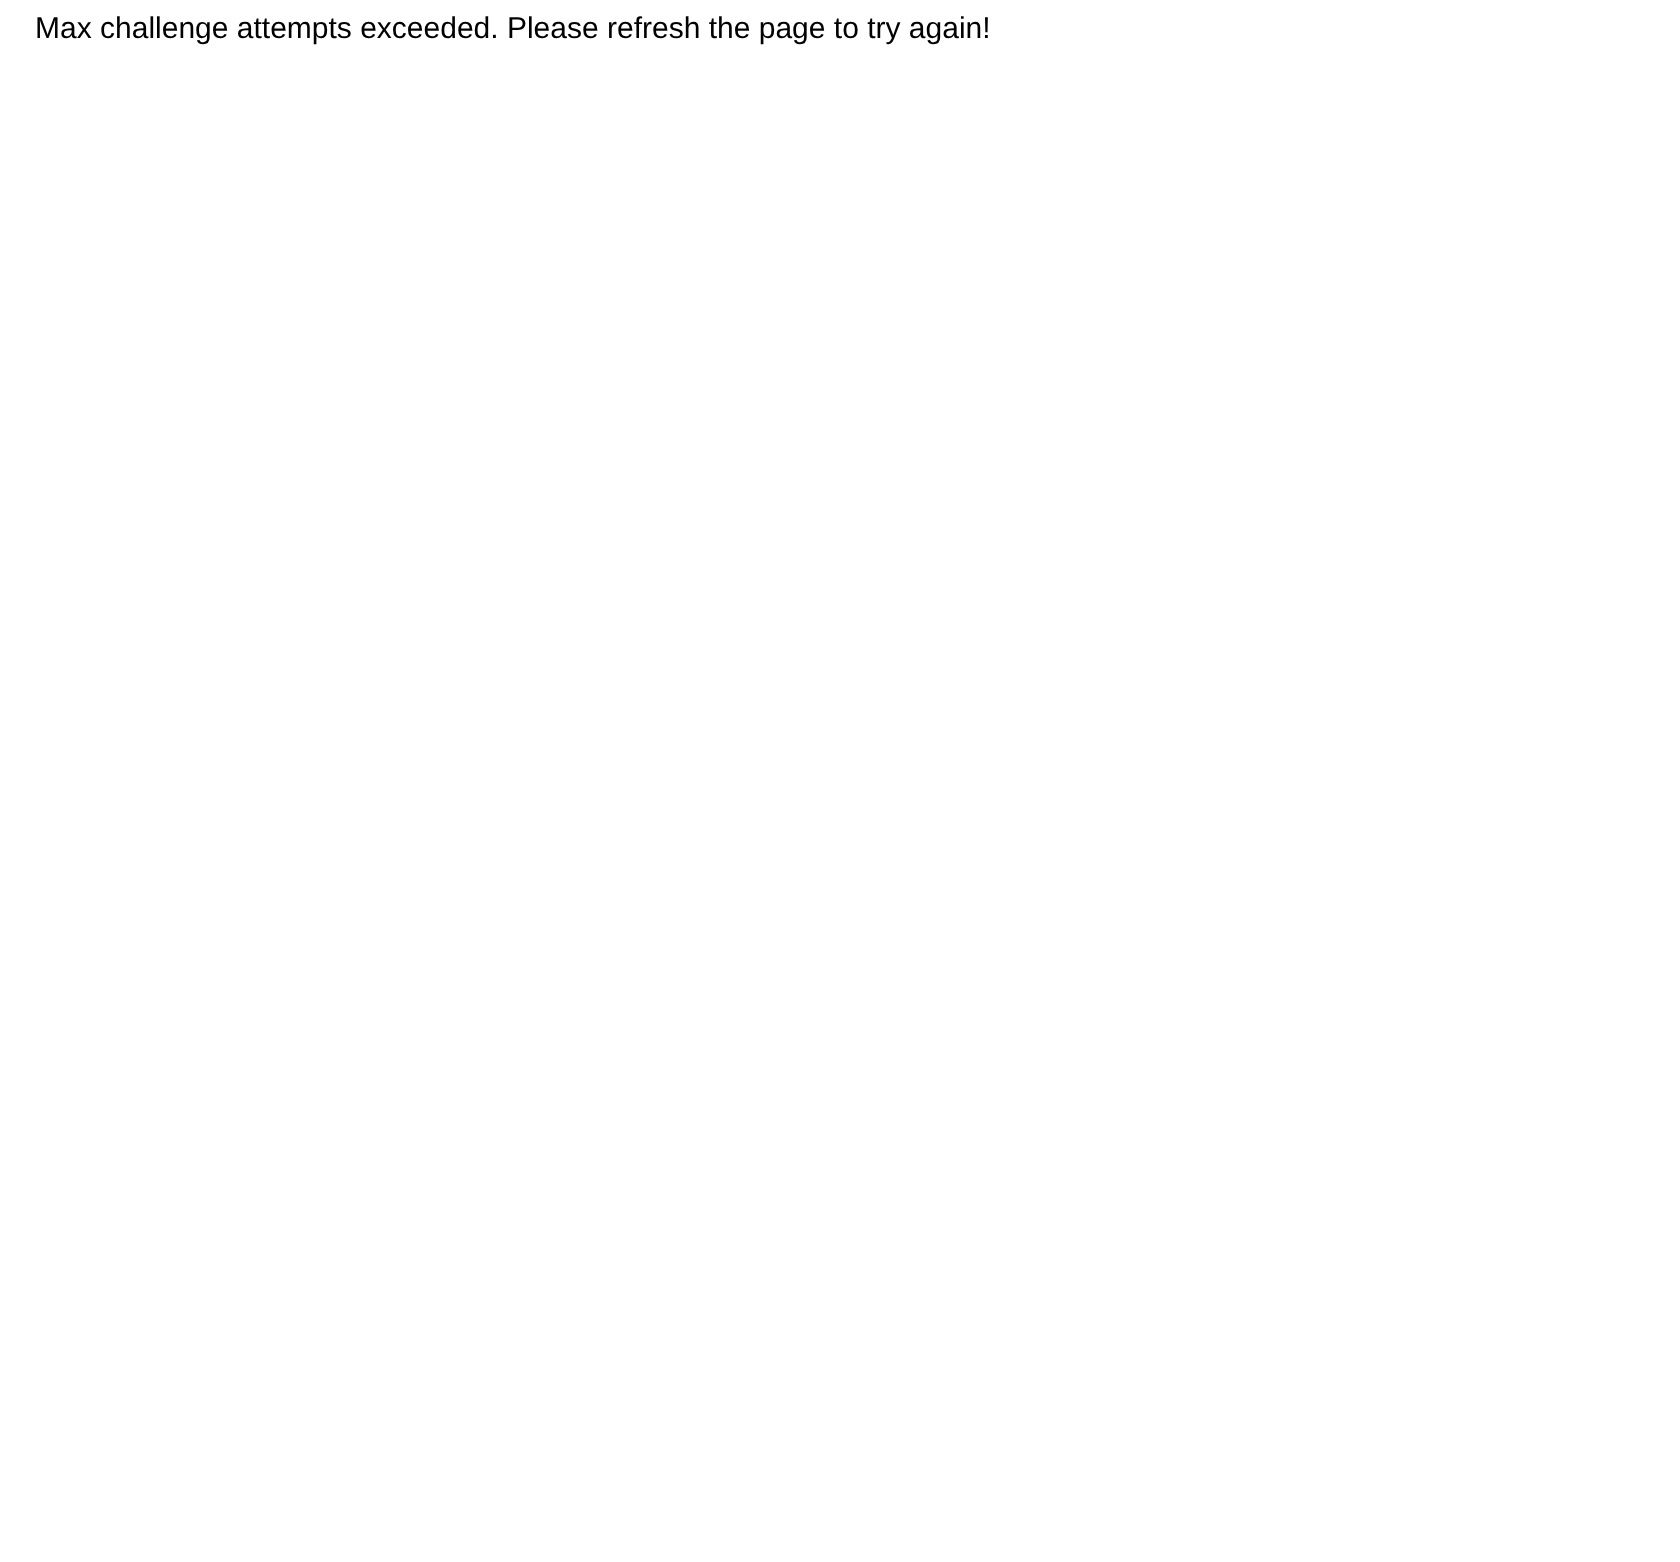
<svg xmlns="http://www.w3.org/2000/svg" width="1680" height="1562">
<style>
.a{font:30px Liberation Sans;fill:#000}
</style>
<rect width="100%" height="100%" fill="#fff"/>
<text class="a" x="35" y="38">Max challenge attempts exceeded. Please refresh the page to try again!</text>
</svg>
